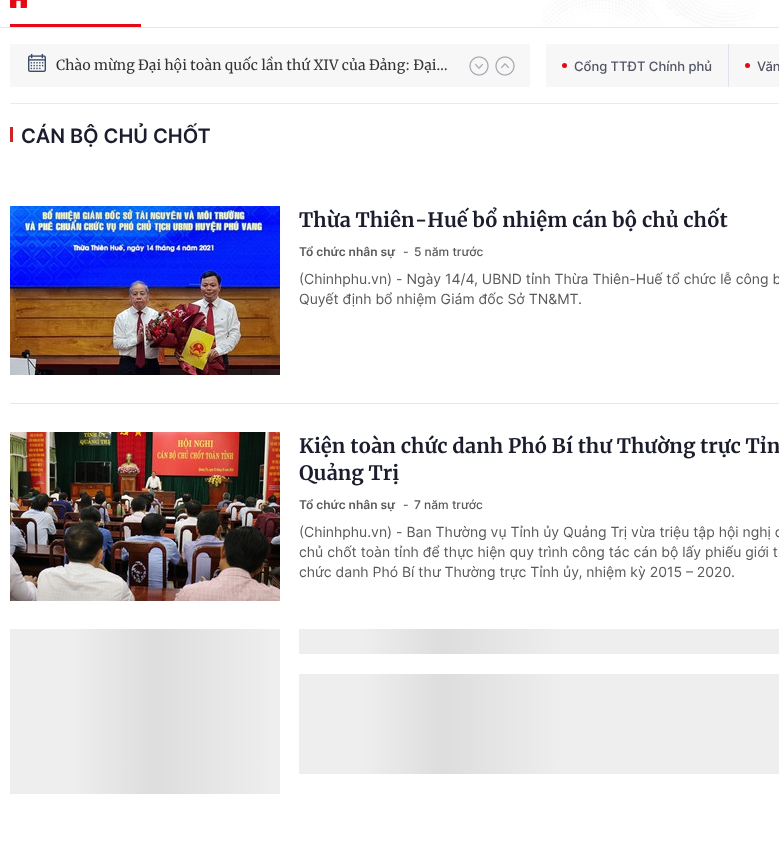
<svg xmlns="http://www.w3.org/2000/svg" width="779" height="843">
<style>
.a{font:14px Merriweather;fill:#333}
.b{font:500 13px Inter;fill:#535565}
.c{font:600 20px Inter;fill:#1b1d2d}
.d{font:bold 20px Merriweather;fill:#1b1d2d}
.e{font:600 12px Inter;fill:#595959}
.f{font:500 12px Inter;fill:#595959}
.g{font:14px Inter;fill:#595959}
</style>
<defs>
<linearGradient id="g1" gradientUnits="userSpaceOnUse" x1="10" y1="729" x2="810" y2="729"><stop offset="0.08" stop-color="#eee"/><stop offset="0.18" stop-color="#ddd"/><stop offset="0.33" stop-color="#eee"/></linearGradient>
<linearGradient id="g2" gradientUnits="userSpaceOnUse" x1="299" y1="729" x2="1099" y2="729"><stop offset="0.08" stop-color="#eee"/><stop offset="0.18" stop-color="#ddd"/><stop offset="0.33" stop-color="#eee"/></linearGradient>
<linearGradient id="g3" gradientUnits="userSpaceOnUse" x1="299" y1="774" x2="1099" y2="774"><stop offset="0.08" stop-color="#eee"/><stop offset="0.18" stop-color="#ddd"/><stop offset="0.33" stop-color="#eee"/></linearGradient>
</defs>
<rect width="100%" height="100%" fill="#fff"/>
<path fill="#e6e6e6" d="M0 27h779v1H0z"/>
<image href="1.png" x="542" y="0" width="217" height="27"/>
<path fill="#e40913" d="M10 24h131v3H10z"/>
<image href="2.png" x="10" y="0" width="17" height="8"/>
<path fill="#ebebeb" d="M10 103h769v1H10z"/>
<path fill="#f7f7f8" d="M10 44h520v43H10z"/>
<image href="3.png" x="28" y="54" width="18" height="18"/>
<image href="4.png" x="469" y="56" width="20" height="20"/>
<image href="5.png" x="495" y="56" width="20" height="20"/>
<path fill="#f7f7f8" d="M546 44h233v43H546z"/>
<path fill="#e1e1f0" d="M728 44h1v43H728z"/>
<circle fill="#e40913" cx="564.5" cy="65.5" r="2.5"/>
<circle fill="#e40913" cx="747.5" cy="65.5" r="2.5"/>
<path fill="#ce2424" d="M10 127h3v15H10z"/>
<path fill="#e6e6e6" d="M10 403h769v1H10z"/>
<image href="6.png" x="10" y="206" width="270" height="169"/>
<image href="7.png" x="10" y="432" width="270" height="169"/>
<path fill="url(#g1)" d="M10 629h270v165H10z"/>
<path fill="url(#g2)" d="M299 629h480v25H299z"/>
<path fill="url(#g3)" d="M299 674h480v100H299z"/>
<text class="a" x="56" y="70">Chào mừng Đại hội toàn quốc lần thứ XIV của Đảng: Đại…</text>
<text class="b" x="574" y="71">Cổng TTĐT Chính phủ</text>
<text class="b" x="757" y="71">Văn</text>
<text class="c" x="21" y="143">CÁN BỘ CHỦ CHỐT</text>
<text class="d" x="299" y="227">Thừa Thiên-Huế bổ nhiệm cán bộ chủ chốt</text>
<text class="e" x="299" y="256">Tổ chức nhân sự</text>
<text class="f" x="403" y="256">-</text>
<text class="f" x="414" y="256">5 năm trước</text>
<text class="g" x="299" y="284">(Chinhphu.vn) - Ngày 14/4, UBND tỉnh Thừa Thiên-Huế tổ chức lễ công b</text>
<text class="g" x="299" y="304">Quyết định bổ nhiệm Giám đốc Sở TN&amp;MT.</text>
<text class="d" x="299" y="453">Kiện toàn chức danh Phó Bí thư Thường trực Tỉn</text>
<text class="d" x="299" y="480">Quảng Trị</text>
<text class="e" x="299" y="509">Tổ chức nhân sự</text>
<text class="f" x="403" y="509">-</text>
<text class="f" x="414" y="509">7 năm trước</text>
<text class="g" x="299" y="537">(Chinhphu.vn) - Ban Thường vụ Tỉnh ủy Quảng Trị vừa triệu tập hội nghị c</text>
<text class="g" x="299" y="557">chủ chốt toàn tỉnh để thực hiện quy trình công tác cán bộ lấy phiếu giới t</text>
<text class="g" x="299" y="577">chức danh Phó Bí thư Thường trực Tỉnh ủy, nhiệm kỳ 2015 – 2020.</text>
</svg>
